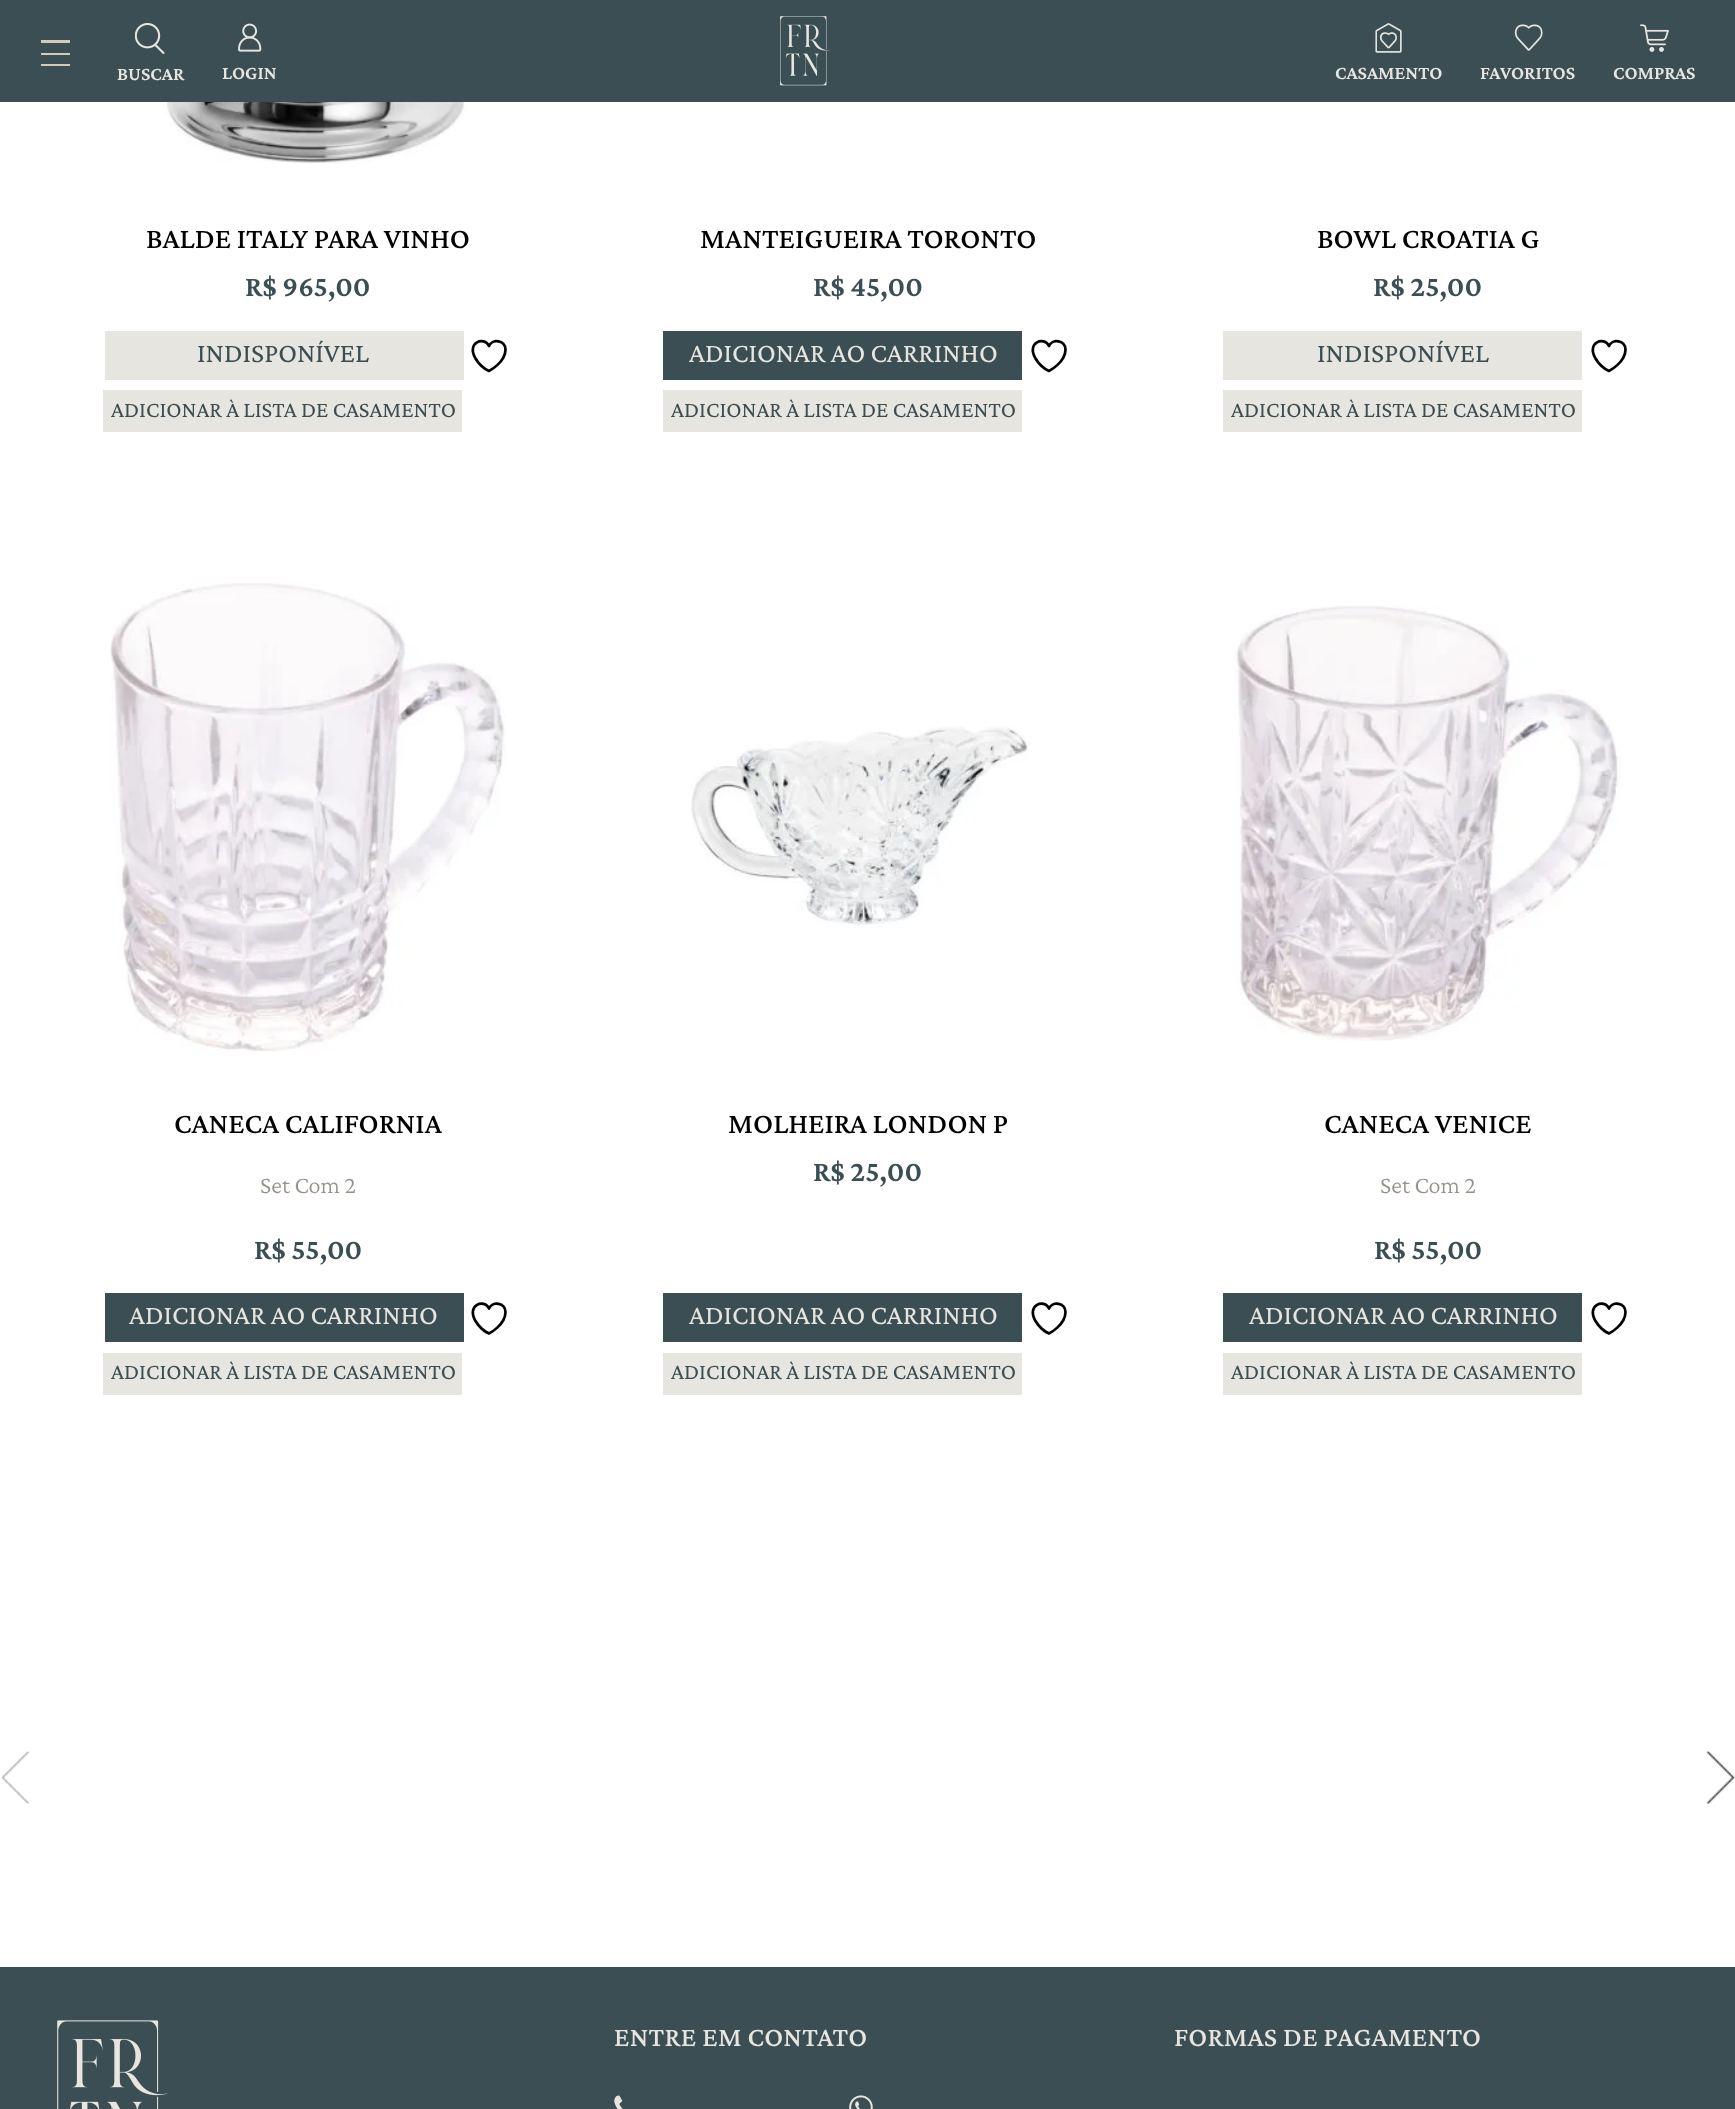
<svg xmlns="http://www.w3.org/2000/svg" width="1735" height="2109">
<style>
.a{font:600 19.25px Crimson Pro;fill:#e7e5df}
.b{font:500 29.75px Crimson Pro;fill:#000}
.c{font:600 29.75px Crimson Pro;fill:#3b4e54}
.d{font:28px Crimson Pro;fill:#3b4e54}
.e{font:22.75px Crimson Pro;fill:#3b4e54}
.f{font:28px Crimson Pro;fill:#e7e5df}
.g{font:300 24.5px Crimson Pro;fill:#969187}
.h{font:500 28px Crimson Pro;letter-spacing:0.3px;fill:#e7e5df}
</style>
<rect width="100%" height="100%" fill="#fff"/>
<path fill="#3b4e54" d="M0 0h1735v102H0z"/>
<path fill="#d1cbb9" d="M41 40h29v3H41z"/>
<path fill="#d1cbb9" d="M41 53h29v2H41z"/>
<path fill="#d1cbb9" d="M41 64h29v2H41z"/>
<image href="1.png" x="780" y="16" width="51" height="70"/>
<image href="2.png" x="135" y="23" width="30" height="31"/>
<image href="3.png" x="238" y="23" width="24" height="29"/>
<image href="4.png" x="1375" y="23" width="27" height="30"/>
<image href="5.png" x="1514" y="24" width="29" height="27"/>
<image href="6.png" x="1640" y="24" width="29" height="28"/>
<image href="7.png" x="156" y="102" width="317" height="62"/>
<path fill="#e7e5df" d="M105 331h359v49H105z"/>
<path fill="none" stroke="#000" stroke-width="2.7" stroke-linecap="round" stroke-linejoin="round" d="M505.5 349.5c0-9-13-11.5-16.5-3.5c-4.5-10-23-4-13.5 12.5c3 5 8 10 13.5 12.5c0 0 16.5-8.5 16.5-21.5z"/>
<path fill="#e7e5df" d="M103 390h359v42H103z"/>
<path fill="#3b4e54" d="M663 331h359v49H663z"/>
<path fill="none" stroke="#000" stroke-width="2.7" stroke-linecap="round" stroke-linejoin="round" d="M1065.5 349.5c0-9-13-11.5-16.5-3.5c-4.5-10-23-4-13.5 12.5c3 5 8 10 13.5 12.5c0 0 16.5-8.5 16.5-21.5z"/>
<path fill="#e7e5df" d="M663 390h359v42H663z"/>
<path fill="#e7e5df" d="M1223 331h359v49H1223z"/>
<path fill="none" stroke="#000" stroke-width="2.7" stroke-linecap="round" stroke-linejoin="round" d="M1625.5 349.5c0-9-13-11.5-16.5-3.5c-4.5-10-23-4-13.5 12.5c3 5 8 10 13.5 12.5c0 0 16.5-8.5 16.5-21.5z"/>
<path fill="#e7e5df" d="M1223 390h359v42H1223z"/>
<image href="8.png" x="110" y="583" width="396" height="469"/>
<path fill="#3b4e54" d="M105 1293h359v49H105z"/>
<path fill="none" stroke="#000" stroke-width="2.7" stroke-linecap="round" stroke-linejoin="round" d="M505.5 1312c0-9-13-11.5-16.5-3.5c-4.5-10-23-4-13.5 12.5c3 5 8 10 13.5 12.5c0 0 16.5-8.5 16.5-21.5z"/>
<path fill="#e7e5df" d="M103 1353h359v42H103z"/>
<image href="9.png" x="691" y="726" width="339" height="202"/>
<path fill="#3b4e54" d="M663 1293h359v49H663z"/>
<path fill="none" stroke="#000" stroke-width="2.7" stroke-linecap="round" stroke-linejoin="round" d="M1065.5 1312c0-9-13-11.5-16.5-3.5c-4.5-10-23-4-13.5 12.5c3 5 8 10 13.5 12.5c0 0 16.5-8.5 16.5-21.5z"/>
<path fill="#e7e5df" d="M663 1353h359v42H663z"/>
<image href="10.png" x="1235" y="605" width="386" height="436"/>
<path fill="#3b4e54" d="M1223 1293h359v49H1223z"/>
<path fill="none" stroke="#000" stroke-width="2.7" stroke-linecap="round" stroke-linejoin="round" d="M1625.5 1312c0-9-13-11.5-16.5-3.5c-4.5-10-23-4-13.5 12.5c3 5 8 10 13.5 12.5c0 0 16.5-8.5 16.5-21.5z"/>
<path fill="#e7e5df" d="M1223 1353h359v42H1223z"/>
<image href="11.png" x="1" y="1751" width="29" height="53"/>
<image href="12.png" x="1706" y="1751" width="29" height="53"/>
<path fill="#3b4e54" d="M0 1967h1735v142H0z"/>
<image href="13.png" x="57" y="2020" width="111" height="89"/>
<image href="14.png" x="614" y="2095" width="9" height="14"/>
<image href="15.png" x="849" y="2095" width="24" height="14"/>
<text class="a" x="117" y="80">BUSCAR</text>
<text class="a" x="222" y="79">LOGIN</text>
<text class="a" x="1335" y="79">CASAMENTO</text>
<text class="a" x="1480" y="79">FAVORITOS</text>
<text class="a" x="1613" y="79">COMPRAS</text>
<text class="b" x="146" y="248">BALDE ITALY PARA VINHO</text>
<text class="c" x="245" y="296">R$ 965,00</text>
<text class="d" x="197" y="362">INDISPONÍVEL</text>
<text class="e" x="111" y="417">ADICIONAR À LISTA DE CASAMENTO</text>
<text class="b" x="700" y="248">MANTEIGUEIRA TORONTO</text>
<text class="c" x="813" y="296">R$ 45,00</text>
<text class="f" x="689" y="362">ADICIONAR AO CARRINHO</text>
<text class="e" x="671" y="417">ADICIONAR À LISTA DE CASAMENTO</text>
<text class="b" x="1317" y="248">BOWL CROATIA G</text>
<text class="c" x="1373" y="296">R$ 25,00</text>
<text class="d" x="1317" y="362">INDISPONÍVEL</text>
<text class="e" x="1231" y="417">ADICIONAR À LISTA DE CASAMENTO</text>
<text class="b" x="174" y="1133">CANECA CALIFORNIA</text>
<text class="g" x="260" y="1193">Set Com 2</text>
<text class="c" x="254" y="1259">R$ 55,00</text>
<text class="f" x="129" y="1324">ADICIONAR AO CARRINHO</text>
<text class="e" x="111" y="1379">ADICIONAR À LISTA DE CASAMENTO</text>
<text class="b" x="728" y="1133">MOLHEIRA LONDON P</text>
<text class="c" x="813" y="1181">R$ 25,00</text>
<text class="f" x="689" y="1324">ADICIONAR AO CARRINHO</text>
<text class="e" x="671" y="1379">ADICIONAR À LISTA DE CASAMENTO</text>
<text class="b" x="1324" y="1133">CANECA VENICE</text>
<text class="g" x="1380" y="1193">Set Com 2</text>
<text class="c" x="1374" y="1259">R$ 55,00</text>
<text class="f" x="1249" y="1324">ADICIONAR AO CARRINHO</text>
<text class="e" x="1231" y="1379">ADICIONAR À LISTA DE CASAMENTO</text>
<text class="h" x="614" y="2046">ENTRE EM CONTATO</text>
<text class="h" x="1174" y="2046">FORMAS DE PAGAMENTO</text>
</svg>
